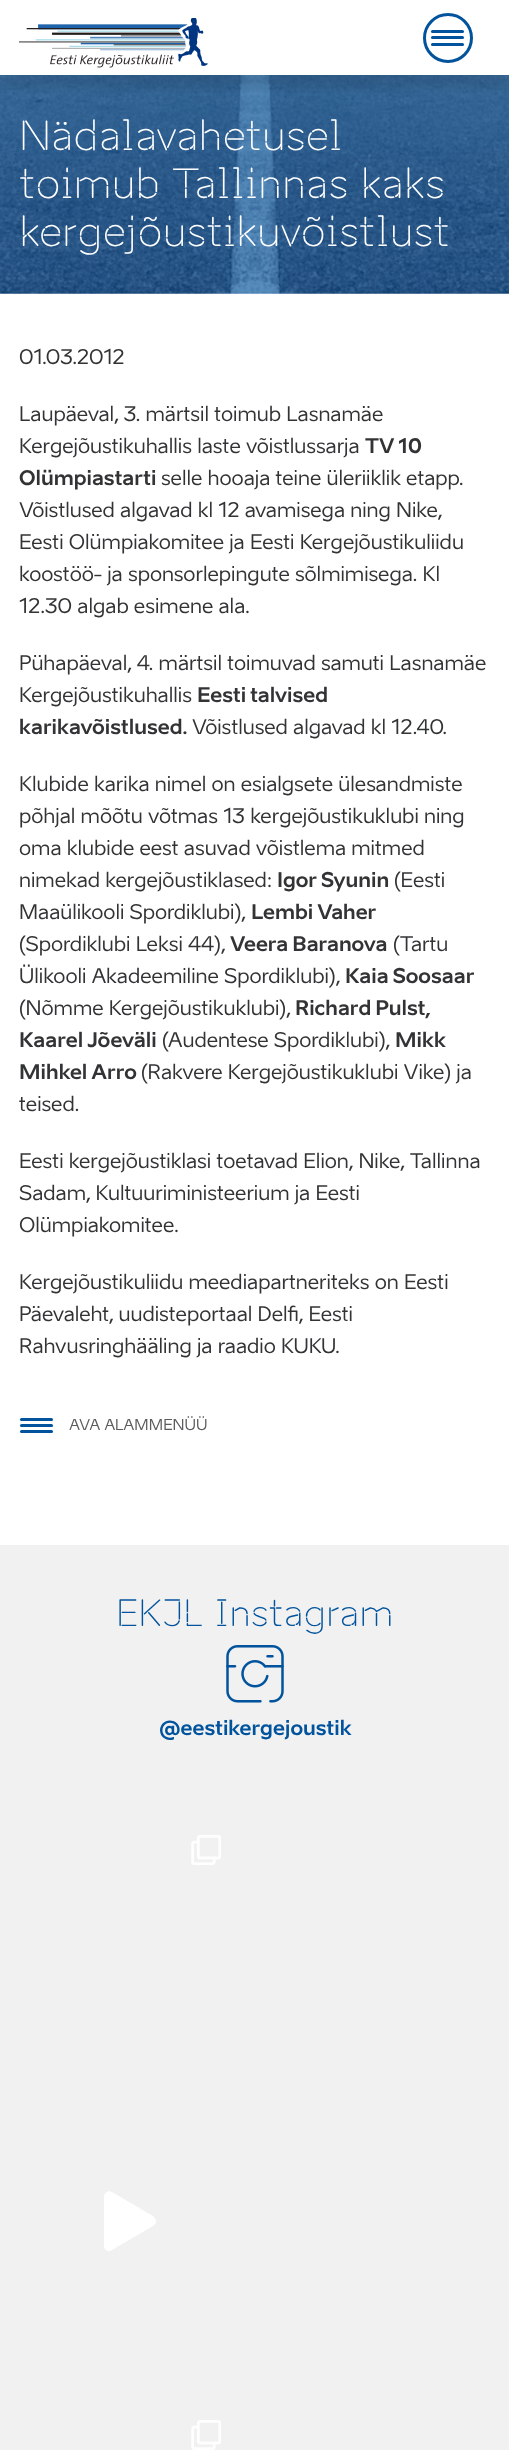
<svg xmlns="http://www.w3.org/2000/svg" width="509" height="2450">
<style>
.a{font:40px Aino;fill:#fff}
.b{font:20px 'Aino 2';fill:#323334}
.c{font:bold 20px Aino;fill:#323334}
.d{font:15px 'Aino 2';fill:#5b5c5d}
.e{font:36px Aino;fill:#00539c}
.f{font:bold 20px Aino;fill:#00539c}
</style>
<defs>
<clipPath id="clip1"><path d="M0 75h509v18H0z"/></clipPath>
</defs>
<rect width="100%" height="100%" fill="#fff"/>
<image href="2.png" x="0" y="75" width="509" height="219"/>
<g clip-path="url(#clip1)">
<path fill="#0000001a" filter="blur(6px)" d="M0 13h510v75H0z"/>
</g>
<image href="1.png" x="19" y="18" width="189" height="50"/>
<circle fill="none" stroke="#00539c" stroke-width="3" cx="448" cy="38" r="23.5"/>
<rect fill="#00539c" x="431" y="30" width="33" height="3" rx="1.5"/>
<rect fill="#00539c" x="431" y="36" width="33" height="3" rx="1.5"/>
<rect fill="#00539c" x="431" y="43" width="33" height="3" rx="1.5"/>
<rect fill="#00539c" x="20" y="1418" width="33" height="3" rx="1.5"/>
<rect fill="#00539c" x="20" y="1424" width="33" height="3" rx="1.5"/>
<rect fill="#00539c" x="20" y="1430" width="33" height="3" rx="1.5"/>
<path fill="#f1f1f1" d="M0 1545h509v905H0z"/>
<image href="3.png" x="226" y="1645" width="58" height="58"/>
<image href="4.png" x="191" y="1835" width="30" height="30"/>
<path fill="#fff" d="M153 2216l-41-24c-3-2-8 0-8 5v49c0 4 5 7 8 4l41-24c4-2 4-7 0-10z"/>
<image href="4.png" x="191" y="2420" width="30" height="30"/>
<text class="a" x="19" y="150">Nädalavahetusel</text>
<text class="a" x="19" y="198">toimub Tallinnas kaks</text>
<text class="a" x="19" y="246">kergejõustikuvõistlust</text>
<text class="b" x="19" y="364">01.03.2012</text>
<text class="b" x="19" y="421">Laupäeval, 3. märtsil toimub Lasnamäe</text>
<text class="b" x="19" y="453">Kergejõustikuhallis laste võistlussarja</text>
<text class="c" x="365" y="453">TV 10</text>
<text class="c" x="19" y="485">Olümpiastarti</text>
<text class="b" x="161" y="485">selle hooaja teine üleriiklik etapp.</text>
<text class="b" x="19" y="517">Võistlused algavad kl 12 avamisega ning Nike,</text>
<text class="b" x="19" y="549">Eesti Olümpiakomitee ja Eesti Kergejõustikuliidu</text>
<text class="b" x="19" y="581">koostöö- ja sponsorlepingute sõlmimisega. Kl</text>
<text class="b" x="19" y="613">12.30 algab esimene ala.</text>
<text class="b" x="19" y="670">Pühapäeval, 4. märtsil toimuvad samuti Lasnamäe</text>
<text class="b" x="19" y="702">Kergejõustikuhallis</text>
<text class="c" x="197" y="702">Eesti talvised</text>
<text class="c" x="19" y="734">karikavõistlused.</text>
<text class="b" x="192" y="734">Võistlused algavad kl 12.40.</text>
<text class="b" x="19" y="791">Klubide karika nimel on esialgsete ülesandmiste</text>
<text class="b" x="19" y="823">põhjal mõõtu võtmas 13 kergejõustikuklubi ning</text>
<text class="b" x="19" y="855">oma klubide eest asuvad võistlema mitmed</text>
<text class="b" x="19" y="887">nimekad kergejõustiklased:</text>
<text class="c" x="277" y="887">Igor Syunin</text>
<text class="b" x="394" y="887">(Eesti</text>
<text class="b" x="19" y="919">Maaülikooli Spordiklubi),</text>
<text class="c" x="251" y="919">Lembi Vaher</text>
<text class="b" x="19" y="951">(Spordiklubi Leksi 44),</text>
<text class="c" x="230" y="951">Veera Baranova</text>
<text class="b" x="393" y="951">(Tartu</text>
<text class="b" x="19" y="983">Ülikooli Akadeemiline Spordiklubi),</text>
<text class="c" x="345" y="983">Kaia Soosaar</text>
<text class="b" x="19" y="1015">(Nõmme Kergejõustikuklubi),</text>
<text class="c" x="295" y="1015">Richard Pulst,</text>
<text class="c" x="19" y="1047">Kaarel Jõeväli</text>
<text class="b" x="162" y="1047">(Audentese Spordiklubi),</text>
<text class="c" x="395" y="1047">Mikk</text>
<text class="c" x="19" y="1079">Mihkel Arro</text>
<text class="b" x="141" y="1079">(Rakvere Kergejõustikuklubi Vike) ja</text>
<text class="b" x="19" y="1111">teised.</text>
<text class="b" x="19" y="1168">Eesti kergejõustiklasi toetavad Elion, Nike, Tallinna</text>
<text class="b" x="19" y="1200">Sadam, Kultuuriministeerium ja Eesti</text>
<text class="b" x="19" y="1232">Olümpiakomitee.</text>
<text class="b" x="19" y="1289">Kergejõustikuliidu meediapartneriteks on Eesti</text>
<text class="b" x="19" y="1321">Päevaleht, uudisteportaal Delfi, Eesti</text>
<text class="b" x="19" y="1353">Rahvusringhääling ja raadio KUKU.</text>
<text class="d" x="69" y="1430">AVA ALAMMENÜÜ</text>
<text class="e" x="116" y="1626">EKJL Instagram</text>
<text class="f" x="159" y="1735">@eestikergejoustik</text>
</svg>
